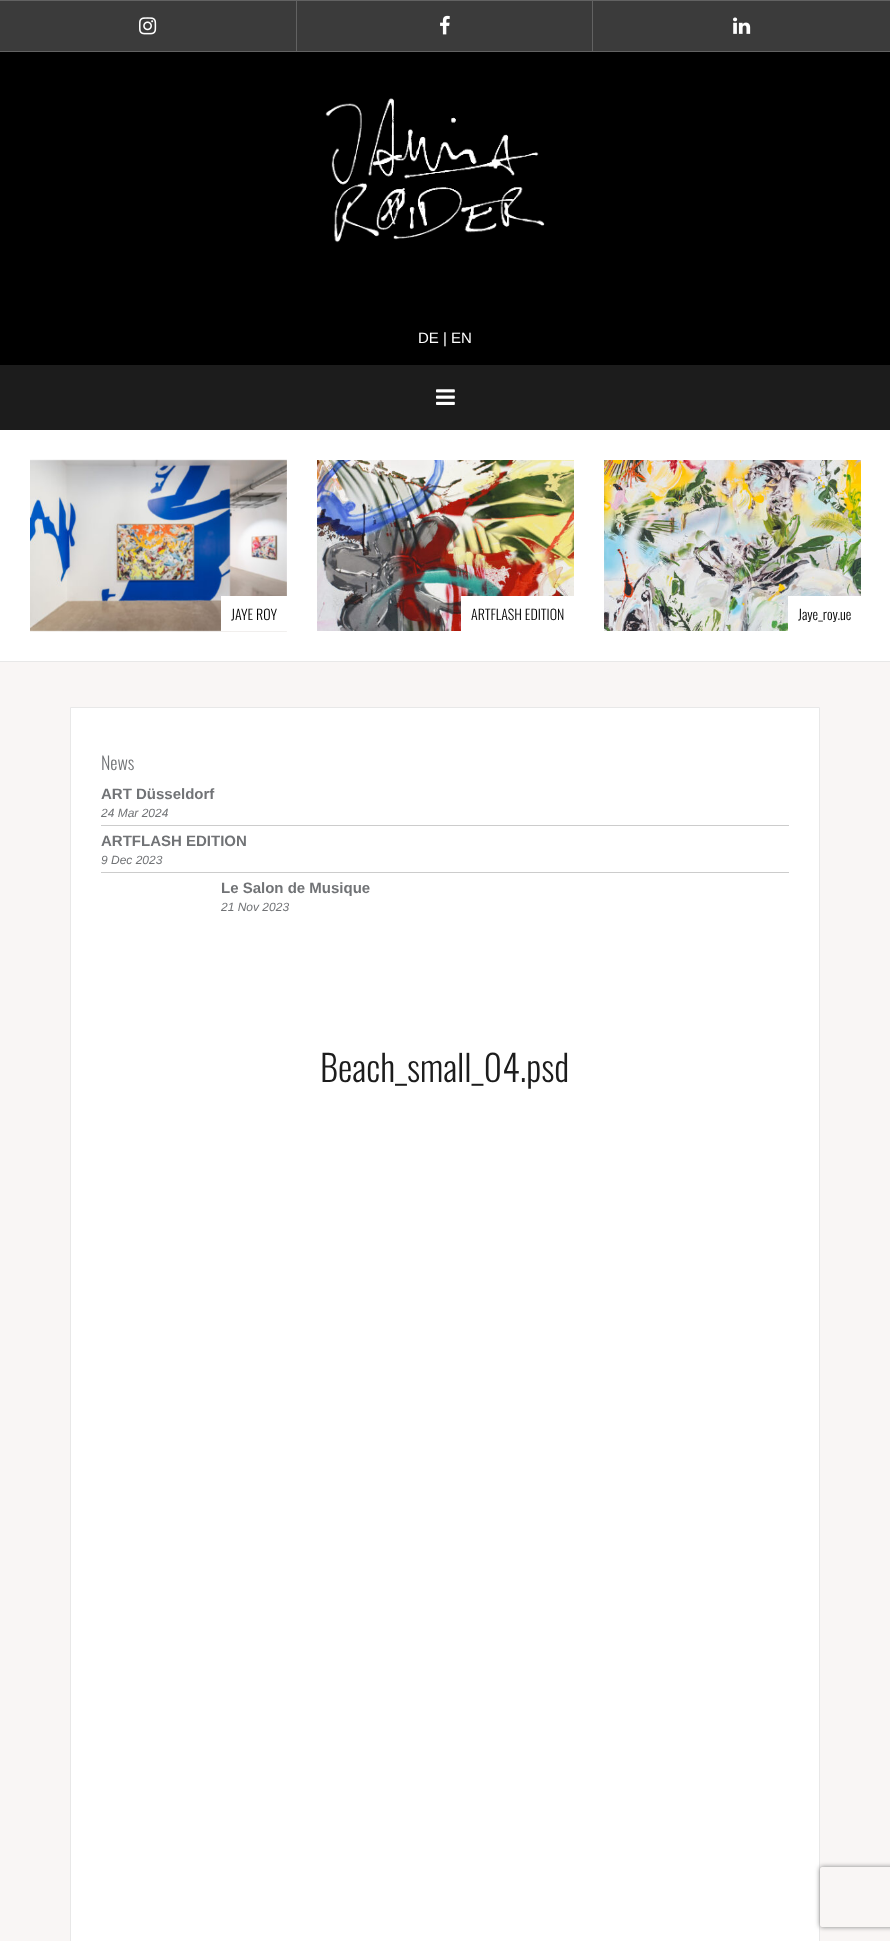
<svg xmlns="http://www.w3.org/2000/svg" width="890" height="1941">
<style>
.a{font:15px Liberation Sans;fill:#fff}
.b{font:300 14px Oswald;fill:#000}
.c{font:300 18px Oswald;fill:#717376}
.d{font:bold 15px Liberation Sans;fill:#717376}
.e{font:italic 12px Liberation Sans;fill:#717376}
.f{font:300 36px Oswald;fill:#1c1c1c}
</style>
<defs>
<clipPath id="clip1"><path d="M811 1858h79v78h-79zm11 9h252c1 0 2 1 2 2v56c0 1-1 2-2 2h-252c-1 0-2-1-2-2v-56c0-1 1-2 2-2z" clip-rule="evenodd"/></clipPath>
</defs>
<rect width="100%" height="100%" fill="#f9f6f5"/>
<path fill="#000" d="M0 52h890v313H0z"/>
<path fill="#3b3b3b" d="M0 1h890v50H0z"/>
<path fill="#626262" d="M0 0h890v1H0z"/>
<path fill="#626262" d="M0 51h890v1H0z"/>
<path fill="#626262" d="M296 1h1v50H296z"/>
<image href="1.png" x="139" y="17" width="18" height="18"/>
<path fill="#626262" d="M592 1h1v50H592z"/>
<image href="2.png" x="440" y="15" width="10" height="20"/>
<image href="3.png" x="733" y="17" width="18" height="17"/>
<image href="4.png" x="325" y="98" width="220" height="145"/>
<path fill="#1c1c1c" d="M0 365h890v65H0z"/>
<image href="5.png" x="436" y="389" width="19" height="16"/>
<path fill="#fff" d="M0 430h890v231H0z"/>
<path fill="#e8e8e8" d="M0 661h890v1H0z"/>
<image href="6.png" x="30" y="459" width="257" height="173"/>
<path fill="#fff" d="M221 596h66v35H221z"/>
<image href="7.png" x="317" y="460" width="257" height="171"/>
<path fill="#fff" d="M461 596h113v35H461z"/>
<image href="8.png" x="604" y="460" width="257" height="171"/>
<path fill="#fff" d="M788 596h73v35H788z"/>
<path fill="#fff" stroke="#e8e8e8" d="M70.5 707.5h749v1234H70.5z"/>
<path fill="#ccc" d="M101 825h688v1H101z"/>
<path fill="#ccc" d="M101 872h688v1H101z"/>
<g clip-path="url(#clip1)">
<rect fill="#808080" filter="blur(2.5px)" x="820" y="1867" width="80" height="60" rx="2"/>
</g>
<text class="a" x="418" y="343">DE | EN</text>
<text class="b" x="231" y="620">JAYE ROY</text>
<text class="b" x="471" y="620">ARTFLASH EDITION</text>
<text class="b" x="798" y="620">Jaye_roy.ue</text>
<text class="c" x="101" y="770">News</text>
<text class="d" x="101" y="799">ART Düsseldorf</text>
<text class="e" x="101" y="817">24 Mar 2024</text>
<text class="d" x="101" y="846">ARTFLASH EDITION</text>
<text class="e" x="101" y="864">9 Dec 2023</text>
<text class="d" x="221" y="893">Le Salon de Musique</text>
<text class="e" x="221" y="911">21 Nov 2023</text>
<text class="f" x="320" y="1082">Beach_small_04.psd</text>
</svg>
